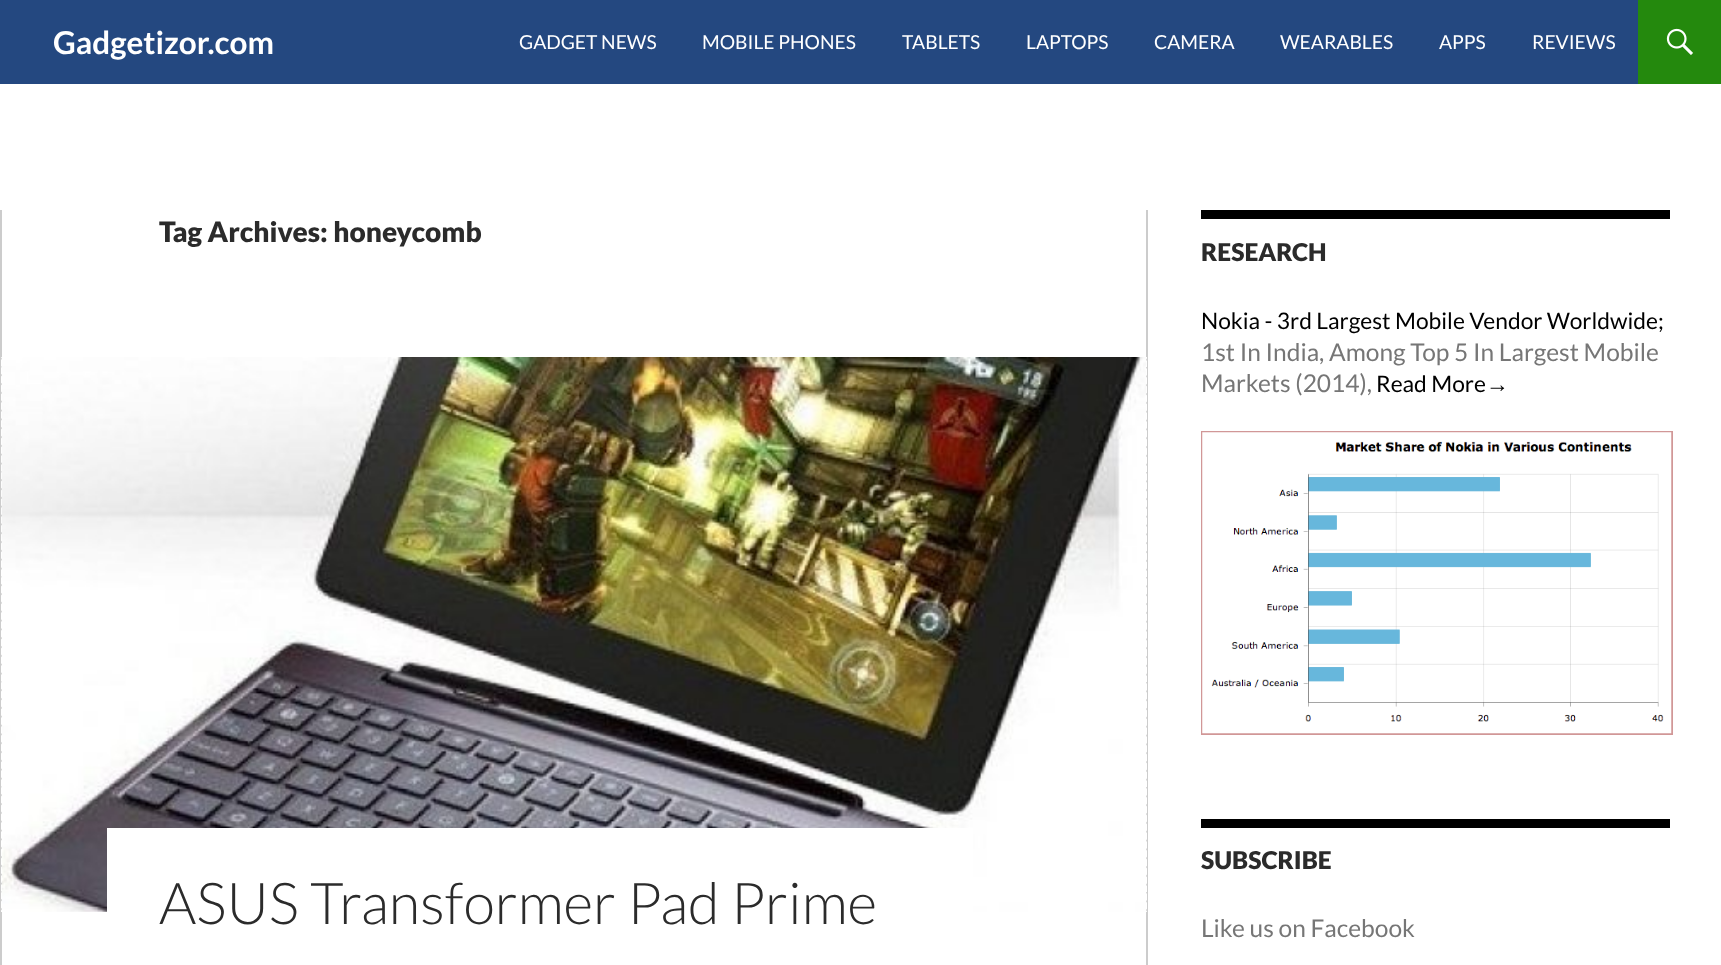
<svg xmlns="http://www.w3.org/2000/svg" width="1721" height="965">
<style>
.a{font:bold 31.5px Lato;fill:#fff}
.b{font:19.25px Lato;fill:#fff}
.c{font:900 28px Lato;fill:#2b2b2b}
.d{font:300 57.75px Lato;fill:#2b2b2b}
.e{font:900 24.5px Lato;fill:#2b2b2b}
.f{font:22.75px Lato;fill:#000}
.g{font:24.5px Lato;fill:#767676}
.h{font:22.75px Liberation Sans;fill:#000}
</style>
<rect width="100%" height="100%" fill="#fff"/>
<path fill="#244880" d="M0 0h1638v84H0z"/>
<path fill="#24890d" d="M1638 0h83v84H1638z"/>
<image href="1.png" x="1666" y="28" width="27" height="27"/>
<path fill="#ccc" d="M1146 210h2v755H1146z"/>
<path fill="#ccc" d="M0 210h2v755H0z"/>
<image href="2.png" x="1" y="357" width="1146" height="555"/>
<image href="3.png" x="1" y="357" width="1146" height="555"/>
<path fill="#fff" d="M107 828h866v84H107z"/>
<path fill="#000" d="M1201 210h469v9H1201z"/>
<path fill="none" stroke="#d19797" stroke-width="2" d="M1202 432h470v302H1202z"/>
<image href="4.png" x="1202" y="432" width="470" height="302"/>
<path fill="#000" d="M1201 819h469v9H1201z"/>
<text class="a" x="53" y="54">Gadgetizor.com</text>
<text class="b" x="519" y="49">GADGET NEWS</text>
<text class="b" x="702" y="49">MOBILE PHONES</text>
<text class="b" x="902" y="49">TABLETS</text>
<text class="b" x="1026" y="49">LAPTOPS</text>
<text class="b" x="1154" y="49">CAMERA</text>
<text class="b" x="1280" y="49">WEARABLES</text>
<text class="b" x="1439" y="49">APPS</text>
<text class="b" x="1532" y="49">REVIEWS</text>
<text class="c" x="159" y="242">Tag Archives: honeycomb</text>
<text class="d" x="159" y="924">ASUS Transformer Pad Prime</text>
<text class="e" x="1201" y="261">RESEARCH</text>
<text class="f" x="1201" y="329">Nokia - 3rd Largest Mobile Vendor Worldwide;</text>
<text class="g" x="1201" y="361">1st In India, Among Top 5 In Largest Mobile</text>
<text class="g" x="1201" y="392">Markets (2014),</text>
<text class="f" x="1376" y="392">Read More</text>
<text class="h" x="1486" y="392">→</text>
<text class="e" x="1201" y="869">SUBSCRIBE</text>
<text class="g" x="1201" y="937">Like us on Facebook</text>
</svg>
